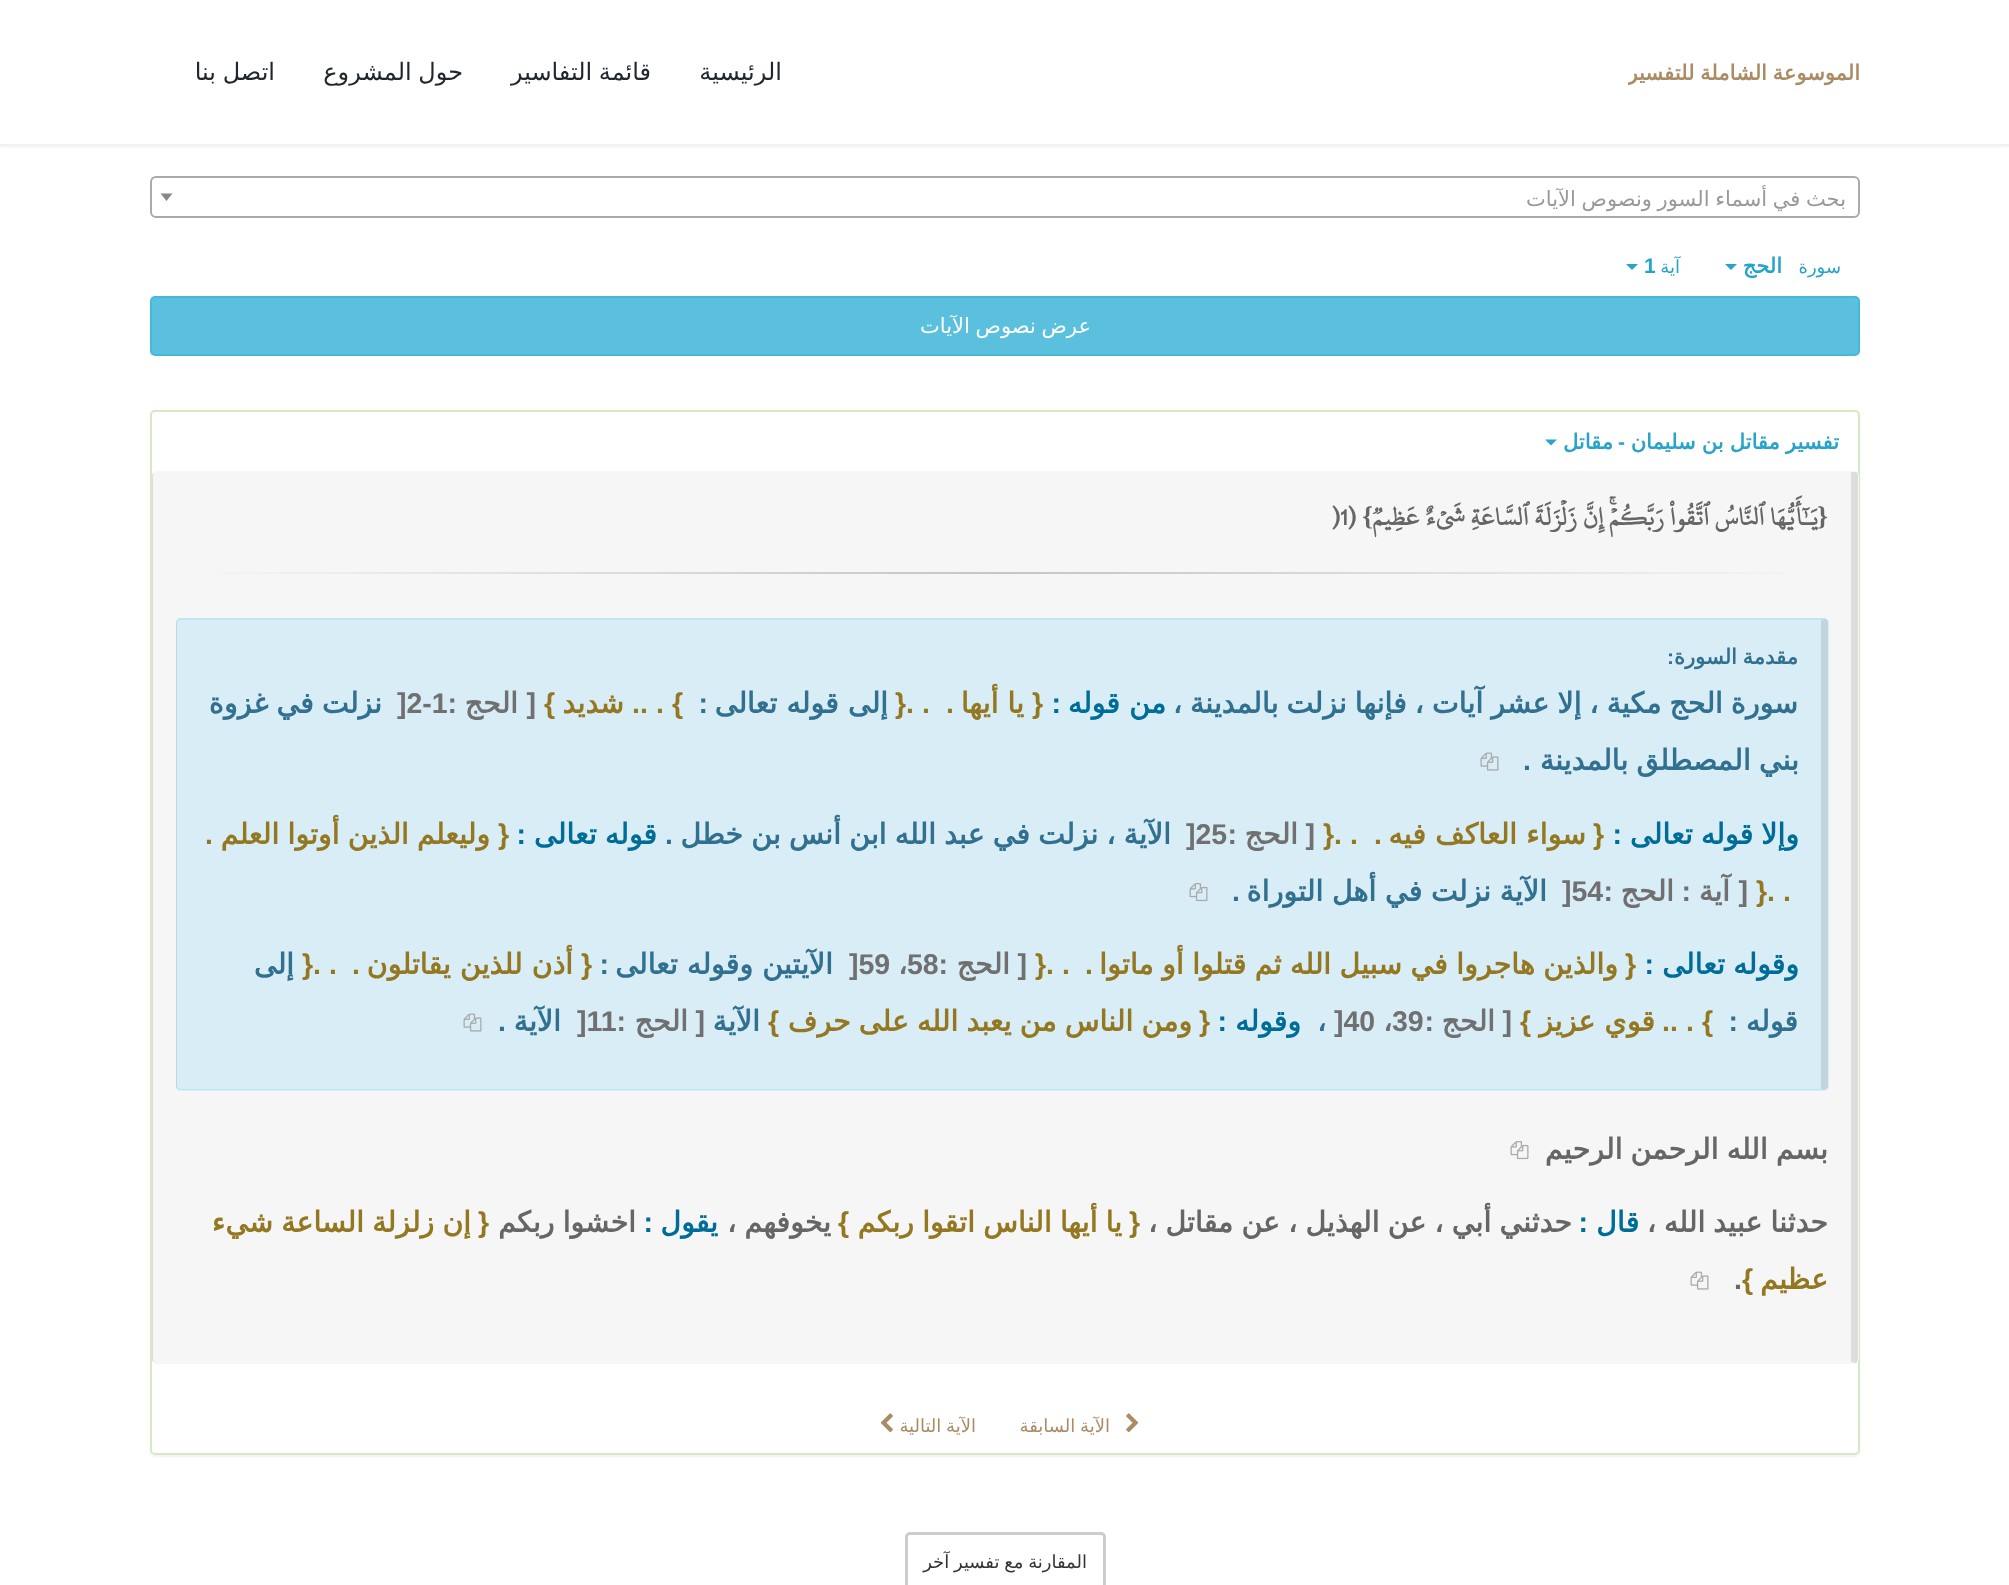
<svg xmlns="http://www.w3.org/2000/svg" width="2009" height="1585">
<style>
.a{font:bold 21px DejaVu Sans;direction:rtl;fill:#ab8b64}
.b{font:24px DejaVu Sans;direction:rtl;fill:#1f262d}
.c{font:21px DejaVu Sans;direction:rtl;fill:#999}
.d{font:18px DejaVu Sans;direction:rtl;fill:#28a4c9}
.e{font:bold 21px DejaVu Sans;direction:rtl;fill:#28a4c9}
.f{font:bold 21px Liberation Sans;fill:#28a4c9}
.g{font:21px DejaVu Sans;direction:rtl;fill:#fff}
.h{font:bold 21px Liberation Sans;direction:rtl;fill:#28a4c9}
.i{font:bold 27px Liberation Serif;direction:rtl;fill:#666}
.j{font:bold 27px 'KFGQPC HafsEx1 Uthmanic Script';direction:rtl;fill:#666}
.k{font:bold 27px 'KFGQPC HafsEx1 Uthmanic Script';fill:#666}
.l{font:bold 21px DejaVu Sans;direction:rtl;fill:#31708f}
.m{font:bold 21px Liberation Sans;direction:rtl;fill:#31708f}
.n{font:bold 28.5px DejaVu Sans;direction:rtl;fill:#31708f}
.o{font:bold 28.5px DejaVu Sans;direction:rtl;fill:#006d98}
.p{font:bold 28.5px Liberation Sans;direction:rtl;fill:#006d98}
.q{font:bold 28.5px Liberation Sans;direction:rtl;fill:#947721}
.r{font:bold 28.5px DejaVu Sans;direction:rtl;fill:#947721}
.s{font:bold 28.5px Liberation Sans;fill:#947721}
.t{font:bold 28.5px Liberation Sans;direction:rtl;fill:#31708f}
.u{font:bold 28.5px Liberation Sans;direction:rtl;fill:#707070}
.v{font:bold 28.5px DejaVu Sans;direction:rtl;fill:#707070}
.w{font:bold 28.5px Liberation Sans;fill:#707070}
.x{font:bold 28.5px DejaVu Sans;fill:#707070}
.y{font:bold 28.5px DejaVu Sans;fill:#31708f}
.z{font:bold 28.5px DejaVu Sans;direction:rtl;fill:#666}
.a1{font:bold 28.5px Liberation Sans;fill:#666}
.b1{font:18px DejaVu Sans;direction:rtl;fill:#ab8b64}
.c1{font:18px DejaVu Sans;direction:rtl;fill:#333}
</style>
<defs>
<clipPath id="clip1"><path d="M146 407h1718v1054h-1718zm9 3h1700c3 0 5 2 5 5v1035c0 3-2 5-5 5h-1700c-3 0-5-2-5-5v-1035c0-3 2-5 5-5z" clip-rule="evenodd"/></clipPath>
<linearGradient id="g1" gradientUnits="userSpaceOnUse" x1="176" y1="572" x2="1829" y2="572"><stop offset="0" stop-color="#f6f6f6"/><stop offset="0.5" stop-color="#c5c5c5"/><stop offset="1" stop-color="#f6f6f6"/></linearGradient>
<clipPath id="clip2"><path d="M1628 0h232v144H1628z"/></clipPath>
</defs>
<rect width="100%" height="100%" fill="#fff"/>
<path fill="#0000001a" filter="blur(1.5px)" d="M0 0h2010v146H0z"/>
<path fill="#fff" d="M0 0h2009v144H0z"/>
<path fill="#f2f2f2" d="M0 144h2009v2H0z"/>
<rect fill="none" stroke="#aaa" stroke-width="2" x="151" y="177" width="1708" height="40" rx="5"/>
<path fill="#888" d="M160.5 193.5h12l-6 7.5z"/>
<path fill="#28a4c9" d="M1725 264h12l-6 6z"/>
<path fill="#28a4c9" d="M1626 264h12l-6 6z"/>
<rect fill="#5bc0de" stroke="#46b8da" stroke-width="2" x="151" y="297" width="1708" height="58" rx="4"/>
<g clip-path="url(#clip1)">
<rect fill="#0000000d" filter="blur(1px)" x="150" y="411" width="1710" height="1046" rx="5"/>
</g>
<rect fill="none" stroke="#d6e9c6" stroke-width="2" x="151" y="411" width="1708" height="1043" rx="4"/>
<path fill="#28a4c9" d="M1545 439.5h12l-6 6z"/>
<rect fill="#f6f6f6" x="152" y="471" width="1707" height="893" rx="5"/>
<path fill="#ddd" d="M1856 472c1 0 2 2 2 4v883c0 1-1 3-2 4l-5-1v-890z"/>
<path fill="#ddd" d="M153 473l-1 3v883l1 3l1-1l-1-2v-883l1-3z"/>
<path fill="url(#g1)" d="M218 572h1569v2H218z"/>
<rect fill="#d9edf7" x="176" y="618" width="1653" height="473" rx="5"/>
<path fill="#bce8f1" d="M180 618c-1 0-2 1-3 2h1h2h1638l8-1l-2-1z"/>
<path fill="#0000001a" d="M1826 619l2 2v466c0 1-2 2-3 3l-4-1v-469h-3z"/>
<path fill="#bce8f1" d="M1825 1090h-1645l-3-1l1-1l2 1h1641z"/>
<path fill="#0000001a" d="M177 620l-1 2v464l1 3l1-1l-1-2v-464l1-2z"/>
<image href="1.png" x="1480" y="752" width="19" height="19"/>
<image href="2.png" x="1189" y="883" width="19" height="19"/>
<image href="1.png" x="463" y="1013" width="19" height="19"/>
<image href="3.png" x="1510" y="1141" width="19" height="19"/>
<image href="4.png" x="1690" y="1271" width="19" height="19"/>
<image href="5.png" x="1126" y="1413" width="13" height="20"/>
<image href="6.png" x="880" y="1413" width="13" height="20"/>
<rect fill="none" stroke="#ccc" stroke-width="3" x="906.5" y="1533.5" width="198" height="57" rx="3.5"/>
<g clip-path="url(#clip2)">
<text class="a" x="1860" y="80" word-spacing="-1">الموسوعة الشاملة للتفسير</text>
</g>
<text class="b" x="782" y="80">الرئيسية</text>
<text class="b" x="651" y="80" word-spacing="-1">قائمة التفاسير</text>
<text class="b" x="463" y="80" word-spacing="-1">حول المشروع</text>
<text class="b" x="275" y="80" word-spacing="-1">اتصل بنا</text>
<text class="c" x="1846" y="206" word-spacing="-1">بحث في أسماء السور ونصوص الآيات</text>
<text class="d" x="1841" y="273">سورة</text>
<text class="e" x="1782" y="273">الحج</text>
<text class="d" x="1680" y="273">آية</text>
<text class="f" x="1644" y="273">1</text>
<text class="g" x="1091" y="333" word-spacing="-1">عرض نصوص الآيات</text>
<text class="e" x="1839" y="449" word-spacing="-0.5">تفسير مقاتل بن سليمان</text>
<text class="h" x="1625" y="449">-</text>
<text class="e" x="1613" y="449">مقاتل</text>
<text class="i" x="1828" y="525">{</text>
<text class="j" x="1818" y="525">يَـٰٓأَيُّهَا ٱلنَّاسُ ٱتَّقُواْ رَبَّكُمۡۚ إِنَّ زَلۡزَلَةَ ٱلسَّاعَةِ شَيۡءٌ عَظِيمٞ</text>
<text class="i" x="1373" y="525">}</text>
<text class="j" x="1356" y="525">(</text>
<text class="k" x="1331" y="525">)1</text>
<text class="l" x="1798" y="664" word-spacing="-1">مقدمة السورة</text>
<text class="m" x="1674" y="664">:</text>
<text class="n" x="1798" y="713" word-spacing="-1.1">سورة الحج مكية ، إلا عشر آيات ، فإنها نزلت بالمدينة ،</text>
<text class="o" x="1166" y="713">من قوله</text>
<text class="p" x="1061" y="713">:</text>
<text class="q" x="1043" y="713">{</text>
<text class="r" x="1024" y="713">يا أيها</text>
<text class="q" x="954" y="713">.</text>
<text class="s" x="922" y="713">.</text>
<text class="s" x="906" y="713">.</text>
<text class="s" x="895" y="713">}</text>
<text class="n" x="888" y="713">إلى قوله تعالى</text>
<text class="t" x="708" y="713">:</text>
<text class="s" x="672" y="713">{</text>
<text class="s" x="656" y="713">.</text>
<text class="s" x="640" y="713">.</text>
<text class="q" x="640" y="713">.</text>
<text class="r" x="624" y="713">شديد</text>
<text class="q" x="555" y="713">}</text>
<text class="u" x="536" y="713">[</text>
<text class="v" x="518" y="713">الحج</text>
<text class="u" x="457" y="713">:</text>
<text class="w" x="397" y="713">]2-1</text>
<text class="n" x="382" y="713" word-spacing="-1">نزلت في غزوة</text>
<text class="n" x="1799" y="770" word-spacing="-1">بني المصطلق بالمدينة</text>
<text class="t" x="1531" y="770">.</text>
<text class="o" x="1799" y="844" word-spacing="-1">وإلا قوله تعالى</text>
<text class="p" x="1622" y="844">:</text>
<text class="q" x="1604" y="844">{</text>
<text class="r" x="1586" y="844">سواء العاكف فيه</text>
<text class="q" x="1382" y="844">.</text>
<text class="s" x="1350" y="844">.</text>
<text class="s" x="1334" y="844">.</text>
<text class="s" x="1323" y="844">}</text>
<text class="u" x="1315" y="844">[</text>
<text class="v" x="1298" y="844">الحج</text>
<text class="u" x="1237" y="844">:</text>
<text class="w" x="1186" y="844">]25</text>
<text class="n" x="1171" y="844" word-spacing="-1">الآية ، نزلت في عبد الله ابن أنس بن خطل</text>
<text class="t" x="673" y="844">.</text>
<text class="o" x="657" y="844" word-spacing="-1">قوله تعالى</text>
<text class="p" x="526" y="844">:</text>
<text class="q" x="509" y="844">{</text>
<text class="r" x="490" y="844" word-spacing="-1">وليعلم الذين أوتوا العلم</text>
<text class="q" x="213" y="844">.</text>
<text class="s" x="1783" y="901">.</text>
<text class="s" x="1767" y="901">.</text>
<text class="s" x="1756" y="901">}</text>
<text class="u" x="1748" y="901">[</text>
<text class="v" x="1730" y="901">آية</text>
<text class="u" x="1691" y="901">:</text>
<text class="v" x="1674" y="901">الحج</text>
<text class="u" x="1613" y="901">:</text>
<text class="w" x="1562" y="901">]54</text>
<text class="n" x="1547" y="901" word-spacing="-0.5">الآية نزلت في أهل التوراة</text>
<text class="t" x="1240" y="901">.</text>
<text class="o" x="1799" y="974" word-spacing="-1">وقوله تعالى</text>
<text class="p" x="1654" y="974">:</text>
<text class="q" x="1636" y="974">{</text>
<text class="r" x="1618" y="974" word-spacing="-0.75">والذين هاجروا في سبيل الله ثم قتلوا أو ماتوا</text>
<text class="q" x="1093" y="974">.</text>
<text class="s" x="1062" y="974">.</text>
<text class="s" x="1046" y="974">.</text>
<text class="s" x="1035" y="974">}</text>
<text class="u" x="1027" y="974">[</text>
<text class="v" x="1010" y="974">الحج</text>
<text class="u" x="948" y="974">:</text>
<text class="w" x="907" y="974">58</text>
<text class="x" x="898" y="974">،</text>
<text class="w" x="849" y="974">]59</text>
<text class="n" x="833" y="974">الآيتين وقوله تعالى</text>
<text class="t" x="609" y="974">:</text>
<text class="q" x="592" y="974">{</text>
<text class="r" x="573" y="974">أذن للذين يقاتلون</text>
<text class="q" x="360" y="974">.</text>
<text class="s" x="329" y="974">.</text>
<text class="s" x="313" y="974">.</text>
<text class="s" x="302" y="974">}</text>
<text class="n" x="294" y="974">إلى</text>
<text class="n" x="1798" y="1031">قوله</text>
<text class="t" x="1738" y="1031">:</text>
<text class="s" x="1702" y="1031">{</text>
<text class="s" x="1686" y="1031">.</text>
<text class="s" x="1670" y="1031">.</text>
<text class="q" x="1670" y="1031">.</text>
<text class="r" x="1655" y="1031">قوي عزيز</text>
<text class="q" x="1531" y="1031">}</text>
<text class="u" x="1512" y="1031">[</text>
<text class="v" x="1495" y="1031">الحج</text>
<text class="u" x="1434" y="1031">:</text>
<text class="w" x="1392" y="1031">39</text>
<text class="x" x="1383" y="1031">،</text>
<text class="w" x="1334" y="1031">]40</text>
<text class="y" x="1317" y="1031">،</text>
<text class="o" x="1301" y="1031">وقوله</text>
<text class="p" x="1227" y="1031">:</text>
<text class="q" x="1210" y="1031">{</text>
<text class="r" x="1192" y="1031" word-spacing="-1">ومن الناس من يعبد الله على حرف</text>
<text class="q" x="779" y="1031">}</text>
<text class="n" x="760" y="1031">الآية</text>
<text class="u" x="705" y="1031">[</text>
<text class="v" x="688" y="1031">الحج</text>
<text class="u" x="626" y="1031">:</text>
<text class="w" x="577" y="1031">]11</text>
<text class="n" x="561" y="1031">الآية</text>
<text class="t" x="506" y="1031">.</text>
<text class="z" x="1828" y="1159" word-spacing="-1.1">بسم الله الرحمن الرحيم</text>
<text class="z" x="1828" y="1232" word-spacing="-1.1">حدثنا عبيد الله ،</text>
<text class="o" x="1639" y="1232">قال</text>
<text class="p" x="1588" y="1232">:</text>
<text class="z" x="1572" y="1232" word-spacing="-1">حدثني أبي ، عن الهذيل ، عن مقاتل ،</text>
<text class="q" x="1140" y="1232">{</text>
<text class="r" x="1122" y="1232" word-spacing="-1">يا أيها الناس اتقوا ربكم</text>
<text class="q" x="849" y="1232">}</text>
<text class="z" x="831" y="1232" word-spacing="-1">يخوفهم ،</text>
<text class="o" x="718" y="1232">يقول</text>
<text class="p" x="653" y="1232">:</text>
<text class="z" x="636" y="1232" word-spacing="-1">اخشوا ربكم</text>
<text class="q" x="489" y="1232">{</text>
<text class="r" x="471" y="1232" word-spacing="-1">إن زلزلة الساعة شيء</text>
<text class="r" x="1828" y="1289">عظيم</text>
<text class="q" x="1753" y="1289">}</text>
<text class="a1" x="1734" y="1289">.</text>
<text class="b1" x="1110" y="1432" word-spacing="-1">الآية السابقة</text>
<text class="b1" x="976" y="1432" word-spacing="-1">الآية التالية</text>
<text class="c1" x="1087" y="1568" word-spacing="-1">المقارنة مع تفسير آخر</text>
</svg>
